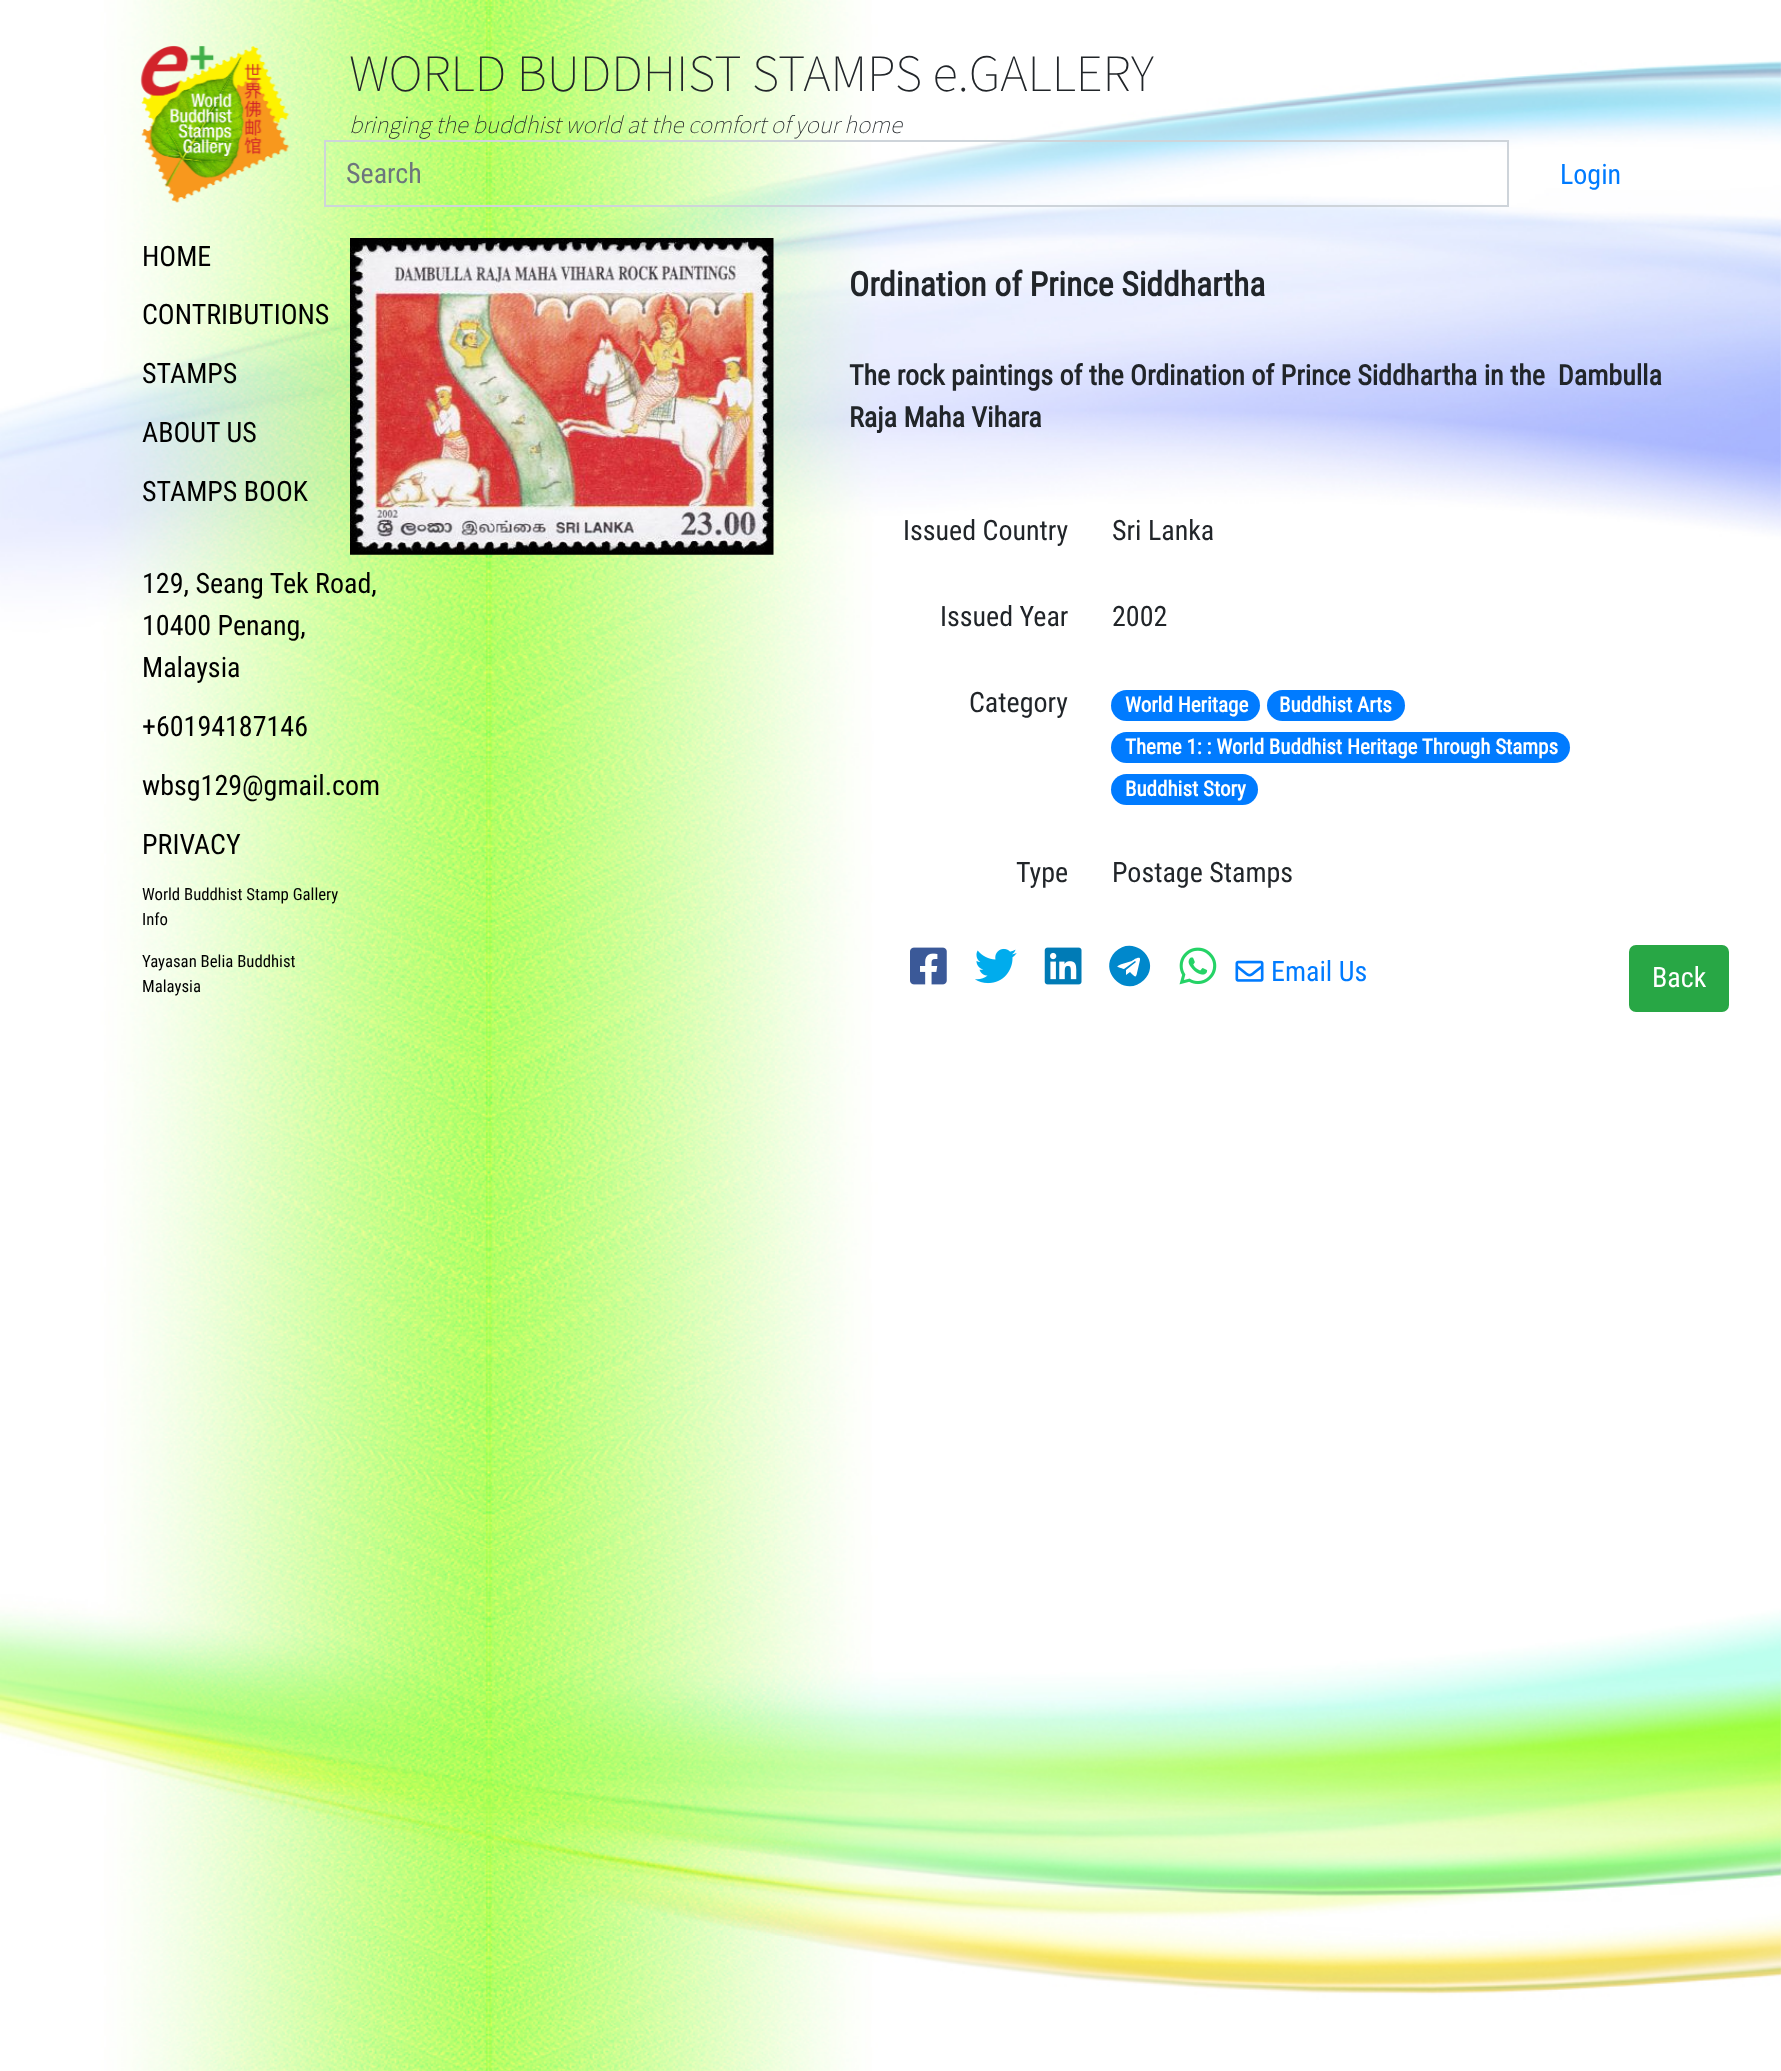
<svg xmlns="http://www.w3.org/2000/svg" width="1781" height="2071">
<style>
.a{font:28px Roboto Condensed;fill:#000}
.b{font:16.75px Roboto Condensed;fill:#000}
.c{font:100 47.6px Noto Sans JP;fill:#212529}
.d{font:italic 100 22.4px Noto Sans JP;fill:#212529}
.e{font:28px Roboto Condensed;fill:#6c757d}
.f{font:28px Roboto Condensed;fill:#007bff}
.g{font:bold 33.6px Roboto Condensed;fill:#212529}
.h{font:bold 28px Roboto Condensed;fill:#212529}
.i{font:28px Roboto Condensed;fill:#212529}
.j{font:bold 21px Roboto Condensed;fill:#fff}
.k{font:28px Roboto Condensed;fill:#fff}
</style>
<rect width="100%" height="100%" fill="#fff"/>
<image href="1.png" x="0" y="0" width="1781" height="2071"/>
<image href="2.png" x="140" y="45" width="150" height="158"/>
<path fill="none" stroke="#ced4da" stroke-width="2" d="M325 141h1183v65H325z"/>
<image href="3.png" x="350" y="238" width="424" height="317"/>
<rect fill="#007bff" x="1111" y="690" width="149" height="31" rx="15.5"/>
<rect fill="#007bff" x="1267" y="690" width="138" height="31" rx="15.5"/>
<rect fill="#007bff" x="1111" y="732" width="459" height="31" rx="15.5"/>
<rect fill="#007bff" x="1111" y="774" width="147" height="31" rx="15.5"/>
<image href="4.png" x="910" y="947" width="37" height="38"/>
<image href="5.png" x="975" y="948" width="42" height="36"/>
<image href="6.png" x="1044" y="947" width="38" height="38"/>
<path fill="#08c" d="M1115 952c19-19 48 9 29 28c-19 19-47-9-29-28zm25 8c1-5-7 0-8 1l-10 3c-8 3-4 3 2 5l11-8l1 1l-10 8v5l4-3c4 4 6 7 7 1z"/>
<image href="7.png" x="1179" y="947" width="38" height="38"/>
<image href="8.png" x="1235" y="960" width="29" height="22"/>
<rect fill="#28a745" stroke="#28a745" stroke-width="2" x="1630" y="946" width="98" height="65" rx="6"/>
<text class="a" x="142" y="266">HOME</text>
<text class="a" x="142" y="324">CONTRIBUTIONS</text>
<text class="a" x="142" y="383">STAMPS</text>
<text class="a" x="142" y="442">ABOUT US</text>
<text class="a" x="142" y="501">STAMPS BOOK</text>
<text class="a" x="142" y="593">129, Seang Tek Road,</text>
<text class="a" x="142" y="635">10400 Penang,</text>
<text class="a" x="142" y="677">Malaysia</text>
<text class="a" x="142" y="736">+60194187146</text>
<text class="a" x="142" y="795">wbsg129@gmail.com</text>
<text class="a" x="142" y="854">PRIVACY</text>
<text class="b" x="142" y="900">World Buddhist Stamp Gallery</text>
<text class="b" x="142" y="925">Info</text>
<text class="b" x="142" y="967">Yayasan Belia Buddhist</text>
<text class="b" x="142" y="992">Malaysia</text>
<text class="c" x="349" y="91">WORLD BUDDHIST STAMPS e.GALLERY</text>
<text class="d" x="349" y="133">bringing the buddhist world at the comfort of your home</text>
<text class="e" x="346" y="183">Search</text>
<text class="f" x="1560" y="184">Login</text>
<text class="g" x="849" y="296">Ordination of Prince Siddhartha</text>
<text class="h" xml:space="preserve" x="849" y="385">The rock paintings of the Ordination of Prince Siddhartha in the  Dambulla</text>
<text class="h" x="849" y="427">Raja Maha Vihara</text>
<text class="i" x="903" y="540">Issued Country</text>
<text class="i" x="1112" y="540">Sri Lanka</text>
<text class="i" x="940" y="626">Issued Year</text>
<text class="i" x="1112" y="626">2002</text>
<text class="i" x="969" y="712">Category</text>
<text class="j" x="1125" y="712">World Heritage</text>
<text class="j" x="1279" y="712">Buddhist Arts</text>
<text class="j" x="1125" y="754">Theme 1: : World Buddhist Heritage Through Stamps</text>
<text class="j" x="1125" y="796">Buddhist Story</text>
<text class="i" x="1016" y="882">Type</text>
<text class="i" x="1112" y="882">Postage Stamps</text>
<text class="f" x="1271" y="981">Email Us</text>
<text class="k" x="1652" y="987">Back</text>
</svg>
